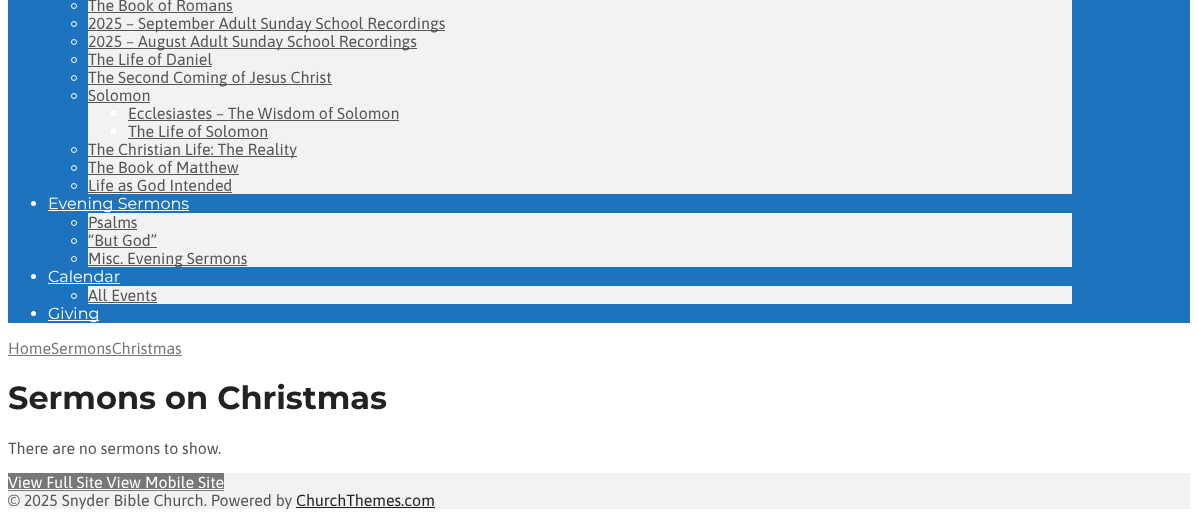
<svg xmlns="http://www.w3.org/2000/svg" width="1198" height="517">
<style>
.a{font:16px Asap;fill:#555}
.b{font:16px Montserrat;fill:#fff}
.c{font:16px Asap;fill:#777}
.d{font:bold 32px Montserrat;fill:#222}
.e{font:16px Asap;fill:#fff}
.f{font:16px Asap;fill:#222}
</style>
<rect width="100%" height="100%" fill="#fff"/>
<path fill="#1e73be" d="M8 0h1182v323H8z"/>
<path fill="#f2f2f2" d="M88 0h984v194H88z"/>
<circle fill="none" stroke="#fff" cx="74" cy="6" r="2.5"/>
<path fill="#555" d="M88 12h145v1H88z"/>
<circle fill="none" stroke="#fff" cx="74" cy="24" r="2.5"/>
<path fill="#555" d="M88 30h357v1H88z"/>
<circle fill="none" stroke="#fff" cx="74" cy="42" r="2.5"/>
<path fill="#555" d="M88 48h329v1H88z"/>
<circle fill="none" stroke="#fff" cx="74" cy="60" r="2.5"/>
<path fill="#555" d="M88 66h124v1H88z"/>
<circle fill="none" stroke="#fff" cx="74" cy="78" r="2.5"/>
<path fill="#555" d="M88 84h244v1H88z"/>
<circle fill="none" stroke="#fff" cx="74" cy="96" r="2.5"/>
<path fill="#555" d="M88 102h62v1H88z"/>
<path fill="#fff" d="M111 111h5v5H111z"/>
<path fill="#555" d="M128 120h271v1H128z"/>
<path fill="#fff" d="M111 129h5v5H111z"/>
<path fill="#555" d="M128 138h140v1H128z"/>
<circle fill="none" stroke="#fff" cx="74" cy="150" r="2.5"/>
<path fill="#555" d="M88 156h209v1H88z"/>
<circle fill="none" stroke="#fff" cx="74" cy="168" r="2.5"/>
<path fill="#555" d="M88 174h151v1H88z"/>
<circle fill="none" stroke="#fff" cx="74" cy="186" r="2.5"/>
<path fill="#555" d="M88 192h144v1H88z"/>
<circle fill="#fff" cx="33.5" cy="203.5" r="2.5"/>
<path fill="#fff" d="M48 210h141v1H48z"/>
<path fill="#f2f2f2" d="M88 213h984v54H88z"/>
<circle fill="none" stroke="#fff" cx="74" cy="223" r="2.5"/>
<path fill="#555" d="M88 229h49v1H88z"/>
<circle fill="none" stroke="#fff" cx="74" cy="241" r="2.5"/>
<path fill="#555" d="M88 247h69v1H88z"/>
<circle fill="none" stroke="#fff" cx="74" cy="259" r="2.5"/>
<path fill="#555" d="M88 265h159v1H88z"/>
<circle fill="#fff" cx="33.5" cy="276.5" r="2.5"/>
<path fill="#fff" d="M48 283h72v1H48z"/>
<path fill="#f2f2f2" d="M88 286h984v18H88z"/>
<circle fill="none" stroke="#fff" cx="74" cy="296" r="2.5"/>
<path fill="#555" d="M88 302h69v1H88z"/>
<circle fill="#fff" cx="33.5" cy="313.5" r="2.5"/>
<path fill="#fff" d="M48 320h51v1H48z"/>
<path fill="#777" d="M8 355h174v1H8z"/>
<path fill="#f2f2f2" d="M8 473h1182v36H8z"/>
<path fill="#777" d="M8 473h216v18H8z"/>
<path fill="#fff" d="M8 489h216v1H8z"/>
<path fill="#222" d="M296 507h139v1H296z"/>
<text class="a" x="88" y="11">The Book of Romans</text>
<text class="a" x="88" y="29">2025 – September Adult Sunday School Recordings</text>
<text class="a" x="88" y="47">2025 – August Adult Sunday School Recordings</text>
<text class="a" x="88" y="65">The Life of Daniel</text>
<text class="a" x="88" y="83">The Second Coming of Jesus Christ</text>
<text class="a" x="88" y="101">Solomon</text>
<text class="a" x="128" y="119">Ecclesiastes – The Wisdom of Solomon</text>
<text class="a" x="128" y="137">The Life of Solomon</text>
<text class="a" x="88" y="155">The Christian Life: The Reality</text>
<text class="a" x="88" y="173">The Book of Matthew</text>
<text class="a" x="88" y="191">Life as God Intended</text>
<text class="b" x="48" y="209">Evening Sermons</text>
<text class="a" x="88" y="228">Psalms</text>
<text class="a" x="88" y="246">“But God”</text>
<text class="a" x="88" y="264">Misc. Evening Sermons</text>
<text class="b" x="48" y="282">Calendar</text>
<text class="a" x="88" y="301">All Events</text>
<text class="b" x="48" y="319">Giving</text>
<text class="c" x="8" y="354">HomeSermonsChristmas</text>
<text class="d" x="8" y="409">Sermons on Christmas</text>
<text class="a" x="8" y="454">There are no sermons to show.</text>
<text class="e" x="8" y="488">View Full Site View Mobile Site</text>
<text class="a" x="8" y="506">© 2025 Snyder Bible Church. Powered by</text>
<text class="f" x="296" y="506">ChurchThemes.com</text>
</svg>
